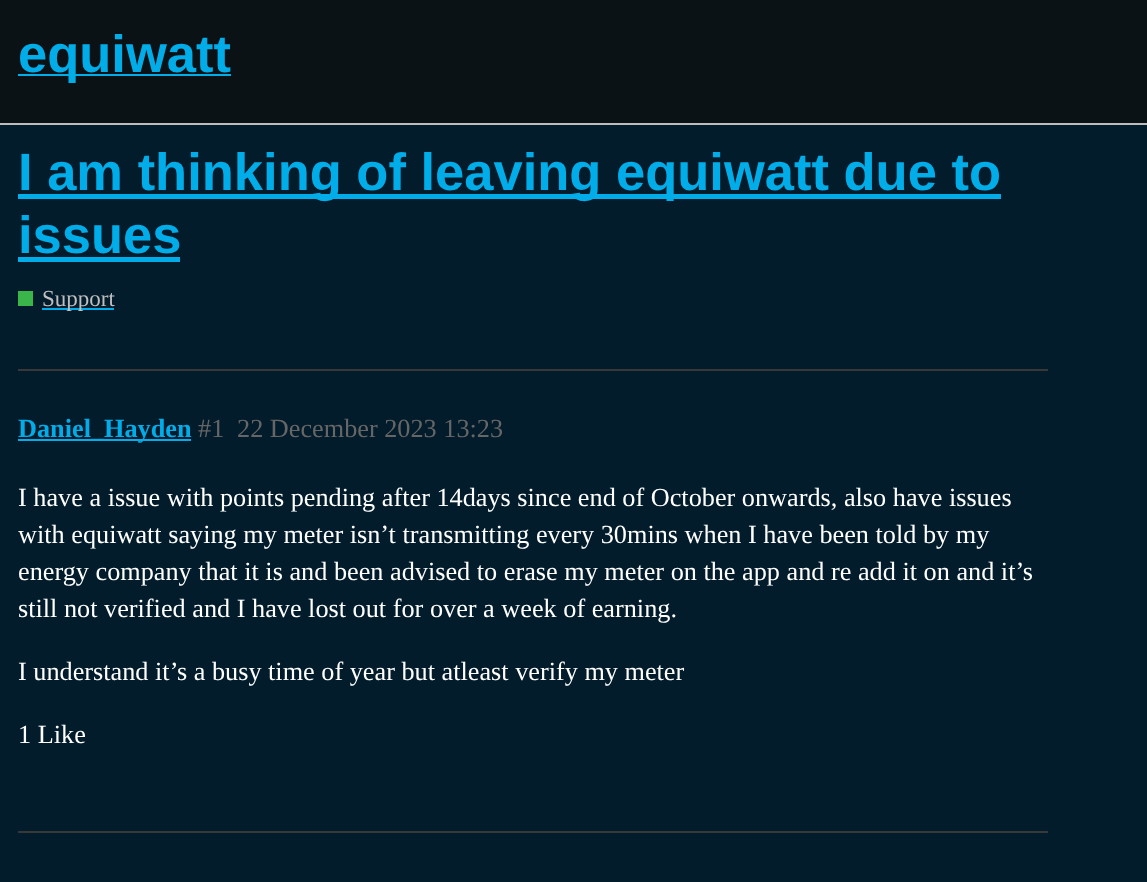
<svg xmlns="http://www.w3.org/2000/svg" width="1147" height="882">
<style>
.a{font:bold 52.5px Liberation Sans;fill:#00ade9}
.b{font:23px Liberation Serif;fill:#bfbfbf}
.c{font:bold 26.25px Liberation Serif;fill:#00ade9}
.d{font:26.25px Liberation Serif;fill:#666}
.e{font:26.25px Liberation Serif;fill:#fff}
</style>
<rect width="100%" height="100%" fill="#021c2b"/>
<path fill="#0a1215" d="M0 0h1147v123H0z"/>
<path fill="#bdbdbe" d="M0 123h1147v2H0z"/>
<path fill="#00ade9" d="M18 74h213v2H18z"/>
<path fill="#00ade9" d="M18 194h983v5H18z"/>
<path fill="#00ade9" d="M18 257h162v5H18z"/>
<path fill="#3ab54a" d="M18 291h15v15H18z"/>
<path fill="#00ade9" d="M42 308h72v2H42z"/>
<path fill="#383838" d="M18 369h1030v2H18z"/>
<path fill="#00ade9" d="M18 439h173v2H18z"/>
<path fill="#383838" d="M18 831h1030v2H18z"/>
<text class="a" x="18" y="72">equiwatt</text>
<text class="a" x="18" y="190">I am thinking of leaving equiwatt due to</text>
<text class="a" x="18" y="253">issues</text>
<text class="b" x="42" y="306">Support</text>
<text class="c" x="18" y="437">Daniel_Hayden</text>
<text class="d" x="198" y="437">#1</text>
<text class="d" x="237" y="437">22 December 2023 13:23</text>
<text class="e" x="18" y="506">I have a issue with points pending after 14days since end of October onwards, also have issues</text>
<text class="e" x="18" y="543">with equiwatt saying my meter isn’t transmitting every 30mins when I have been told by my</text>
<text class="e" x="18" y="580">energy company that it is and been advised to erase my meter on the app and re add it on and it’s</text>
<text class="e" x="18" y="617">still not verified and I have lost out for over a week of earning.</text>
<text class="e" x="18" y="680">I understand it’s a busy time of year but atleast verify my meter</text>
<text class="e" x="18" y="743">1 Like</text>
</svg>
